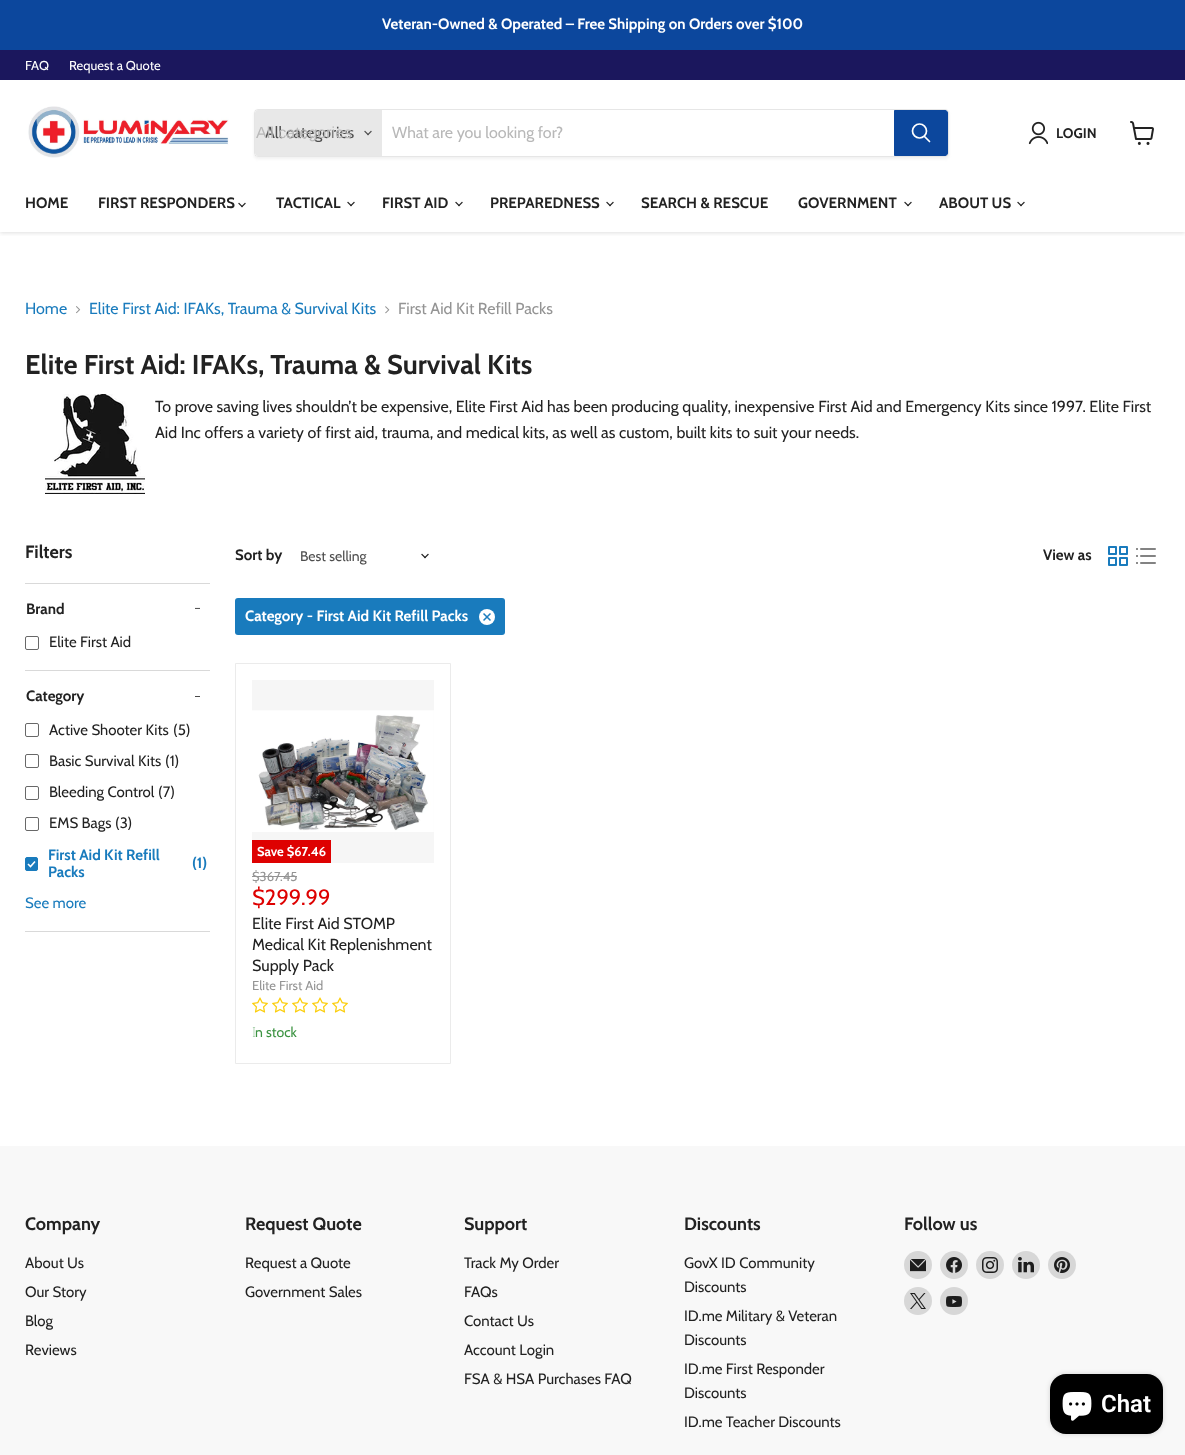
<svg xmlns="http://www.w3.org/2000/svg" width="1185" height="1455">
<style>
.a{font:bold 15px Cabin;fill:#fff}
.b{font:13px Cabin;fill:#fff}
.c{font:16px Cabin;fill:#4d4d4d}
.d{font:16px Liberation Sans;fill:#b8b8b8}
.e{font:16px Cabin;fill:#b8b8b8}
.f{font:bold 14px Cabin;fill:#222}
.g{font:bold 15px Cabin;fill:#222}
.h{font:16px Cabin;fill:#197bbd}
.i{font:16px Cabin;fill:#949494}
.j{font:bold 27.25px Cabin;fill:#222}
.k{font:16px Cabin;fill:#222}
.l{font:bold 18px Cabin;fill:#222}
.m{font:15px Cabin;fill:#222}
.n{font:bold 15px Cabin;fill:#197bbd}
.o{font:15px Cabin;fill:#197bbd}
.p{font:14px Cabin;fill:#4d4d4d}
.q{font:bold 13px Cabin;fill:#fff}
.r{font:13px Cabin;fill:#949494}
.s{font:22px Cabin;fill:#de0101}
.t{font:100 14px Noto Sans;fill:#3c9342}
.u{font:14px Cabin;fill:#3c9342}
.v{font:600 24px Roboto;fill:#fff}
</style>
<defs>
<clipPath id="clip1"><path d="M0 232h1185v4H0z"/></clipPath>
<clipPath id="clip2"><path d="M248 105h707v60h-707zm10 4h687c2 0 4 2 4 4v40c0 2-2 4-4 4h-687c-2 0-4-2-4-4v-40c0-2 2-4 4-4z" clip-rule="evenodd"/></clipPath>
</defs>
<rect width="100%" height="100%" fill="#fff"/>
<path fill="#0c479d" d="M0 0h1185v50H0z"/>
<g clip-path="url(#clip1)">
<path fill="#80808040" filter="blur(2px)" d="M0 82h1185v151H0z"/>
</g>
<path fill="#1b175d" d="M0 50h1185v30H0z"/>
<path fill="#fff" d="M0 80h1185v1H0z"/>
<image href="1.png" x="28" y="106" width="201" height="52"/>
<g clip-path="url(#clip2)">
<rect fill="#8080801c" filter="blur(1.5px)" x="254" y="111" width="695" height="48" rx="4"/>
</g>
<rect fill="none" stroke="#80808033" x="254.5" y="109.5" width="694" height="47" rx="3.5"/>
<path fill="#e8e8e8" d="M258 110h124v46h-124c-1.5 0-3-1.5-3-3v-40c0-1.5 1.5-3 3-3z"/>
<image href="2.png" x="364" y="130" width="8" height="6"/>
<path fill="#0c479d" stroke="#0c479d" d="M894.5 110.5h50.5c1.5 0 2.5 1 2.5 2.5v40c0 1.5-1 2.5-2.5 2.5h-50.5z"/>
<path fill="none" stroke="#fff" stroke-width="1.7" stroke-linecap="round" d="M929.5 141.5l-5-5"/>
<circle fill="none" stroke="#fff" stroke-width="1.7" cx="919.5" cy="131" r="7"/>
<image href="3.png" x="1028" y="121" width="20" height="24"/>
<image href="4.png" x="1130" y="121" width="24" height="24"/>
<image href="5.png" x="238" y="202" width="8" height="6"/>
<image href="5.png" x="347" y="201" width="8" height="6"/>
<image href="5.png" x="455" y="201" width="8" height="6"/>
<image href="5.png" x="606" y="201" width="8" height="6"/>
<image href="5.png" x="904" y="201" width="8" height="6"/>
<image href="5.png" x="1017" y="201" width="8" height="6"/>
<image href="6.png" x="76" y="306" width="5" height="8"/>
<image href="7.png" x="385" y="306" width="5" height="8"/>
<image href="8.png" x="45" y="394" width="100" height="100"/>
<path fill="#d9d9d9" d="M25 583h185v1H25z"/>
<image href="9.png" x="195" y="607" width="5" height="2"/>
<rect fill="none" stroke="#686868" x="25.5" y="636.5" width="13" height="13" rx="1.5"/>
<path fill="#d9d9d9" d="M25 670h185v1H25z"/>
<path fill="#d9d9d9" d="M25 931h185v1H25z"/>
<path fill="#4a4a4a" d="M195 696h5v1H195z"/>
<rect fill="none" stroke="#686868" x="25.5" y="723.5" width="13" height="13" rx="1.5"/>
<rect fill="none" stroke="#686868" x="25.5" y="754.5" width="13" height="13" rx="1.5"/>
<rect fill="none" stroke="#686868" x="25.5" y="786.5" width="13" height="13" rx="1.5"/>
<rect fill="none" stroke="#686868" x="25.5" y="817.5" width="13" height="13" rx="1.5"/>
<rect fill="#197bbd" stroke="#197bbd" x="25.5" y="857.5" width="12" height="13" rx="1.5"/>
<path fill="none" stroke="#fff" stroke-width="1.6" d="M28 864l2.5 2.5l4.5-5"/>
<image href="10.png" x="421" y="553" width="8" height="6"/>
<image href="11.png" x="1108" y="546" width="20" height="20"/>
<image href="12.png" x="1136" y="548" width="20" height="16"/>
<rect fill="#197bbd" x="235" y="598" width="270" height="37" rx="3"/>
<circle fill="#fff" cx="487" cy="617" r="8"/>
<image href="13.png" x="483" y="613" width="8" height="8"/>
<path fill="none" stroke="#ebebeb" d="M235.5 663.5h215v400H235.5z"/>
<path fill="#f6f6f6" d="M252 680h182v183H252z"/>
<image href="14.png" x="252" y="710" width="182" height="122"/>
<path fill="#de0101" d="M252 840h79v23H252z"/>
<path fill="#949494" d="M252 876h45v1H252z"/>
<image href="15.png" x="252" y="997" width="16" height="16"/>
<image href="15.png" x="272" y="997" width="16" height="16"/>
<image href="15.png" x="292" y="997" width="16" height="16"/>
<image href="15.png" x="312" y="997" width="16" height="16"/>
<image href="15.png" x="332" y="997" width="16" height="16"/>
<path fill="#f8f8f8" d="M0 1146h1185v309H0z"/>
<circle fill="#d7d7d7" cx="918" cy="1265" r="14"/>
<image href="16.png" x="910" y="1259" width="16" height="13"/>
<circle fill="#d7d7d7" cx="954" cy="1265" r="14"/>
<image href="17.png" x="946" y="1257" width="16" height="16"/>
<circle fill="#d7d7d7" cx="990" cy="1265" r="14"/>
<image href="18.png" x="982" y="1257" width="16" height="16"/>
<circle fill="#d7d7d7" cx="1026" cy="1265" r="14"/>
<image href="19.png" x="1018" y="1257" width="16" height="16"/>
<circle fill="#d7d7d7" cx="1062" cy="1265" r="14"/>
<image href="20.png" x="1054" y="1257" width="16" height="16"/>
<circle fill="#d7d7d7" cx="918" cy="1301" r="14"/>
<image href="21.png" x="910" y="1293" width="16" height="16"/>
<circle fill="#d7d7d7" cx="954" cy="1301" r="14"/>
<image href="22.png" x="946" y="1296" width="16" height="11"/>
<rect fill="#00000026" filter="blur(2.5px)" x="1050" y="1374" width="113" height="60" rx="16"/>
<rect fill="#000" x="1050" y="1374" width="113" height="60" rx="16"/>
<image href="23.png" x="1062" y="1392" width="30" height="29"/>
<text class="a" x="382" y="29">Veteran-Owned &amp; Operated – Free Shipping on Orders over $100</text>
<text class="b" x="25" y="70">FAQ</text>
<text class="b" x="69" y="70">Request a Quote</text>
<text class="c" x="265" y="138">All categories</text>
<text class="d" x="256" y="138">All categories</text>
<text class="e" x="392" y="138">What are you looking for?</text>
<text class="f" x="1056" y="138">LOGIN</text>
<text class="g" x="25" y="208">HOME</text>
<text class="g" x="98" y="208">FIRST RESPONDERS</text>
<text class="g" x="276" y="208">TACTICAL</text>
<text class="g" x="382" y="208">FIRST AID</text>
<text class="g" x="490" y="208">PREPAREDNESS</text>
<text class="g" x="641" y="208">SEARCH &amp; RESCUE</text>
<text class="g" x="798" y="208">GOVERNMENT</text>
<text class="g" x="939" y="208">ABOUT US</text>
<text class="h" x="25" y="314">Home</text>
<text class="h" x="89" y="314">Elite First Aid: IFAKs, Trauma &amp; Survival Kits</text>
<text class="i" x="398" y="314">First Aid Kit Refill Packs</text>
<text class="j" x="25" y="374">Elite First Aid: IFAKs, Trauma &amp; Survival Kits</text>
<text class="k" x="155" y="412">To prove saving lives shouldn’t be expensive, Elite First Aid has been producing quality, inexpensive First Aid and Emergency Kits since 1997. Elite First</text>
<text class="k" x="155" y="438">Aid Inc offers a variety of first aid, trauma, and medical kits, as well as custom, built kits to suit your needs.</text>
<text class="l" x="25" y="558">Filters</text>
<text class="g" x="26" y="614">Brand</text>
<text class="m" x="49" y="647">Elite First Aid</text>
<text class="g" x="26" y="701">Category</text>
<text class="m" x="49" y="735">Active Shooter Kits</text>
<text class="m" x="173" y="735">(5)</text>
<text class="m" x="49" y="766">Basic Survival Kits</text>
<text class="m" x="165" y="766">(1)</text>
<text class="m" x="49" y="797">Bleeding Control</text>
<text class="m" x="158" y="797">(7)</text>
<text class="m" x="49" y="828">EMS Bags</text>
<text class="m" x="115" y="828">(3)</text>
<text class="n" x="48" y="860">First Aid Kit Refill</text>
<text class="n" x="48" y="877">Packs</text>
<text class="n" x="192" y="868">(1)</text>
<text class="o" x="25" y="908">See more</text>
<text class="g" x="235" y="560">Sort by</text>
<text class="p" x="300" y="561">Best selling</text>
<text class="g" x="1043" y="560">View as</text>
<text class="a" x="245" y="621">Category - First Aid Kit Refill Packs</text>
<text class="q" x="257" y="856">Save $67.46</text>
<text class="r" x="252" y="881">$367.45</text>
<text class="s" x="252" y="905">$299.99</text>
<text class="k" x="252" y="929">Elite First Aid STOMP</text>
<text class="k" x="252" y="950">Medical Kit Replenishment</text>
<text class="k" x="252" y="971">Supply Pack</text>
<text class="r" x="252" y="990">Elite First Aid</text>
<text class="t" x="252" y="1037">I</text>
<text class="u" x="255" y="1037">n stock</text>
<text class="l" x="25" y="1230">Company</text>
<text class="m" x="25" y="1268">About Us</text>
<text class="m" x="25" y="1297">Our Story</text>
<text class="m" x="25" y="1326">Blog</text>
<text class="m" x="25" y="1355">Reviews</text>
<text class="l" x="245" y="1230">Request Quote</text>
<text class="m" x="245" y="1268">Request a Quote</text>
<text class="m" x="245" y="1297">Government Sales</text>
<text class="l" x="464" y="1230">Support</text>
<text class="m" x="464" y="1268">Track My Order</text>
<text class="m" x="464" y="1297">FAQs</text>
<text class="m" x="464" y="1326">Contact Us</text>
<text class="m" x="464" y="1355">Account Login</text>
<text class="m" x="464" y="1384">FSA &amp; HSA Purchases FAQ</text>
<text class="l" x="684" y="1230">Discounts</text>
<text class="m" x="684" y="1268">GovX ID Community</text>
<text class="m" x="684" y="1292">Discounts</text>
<text class="m" x="684" y="1321">ID.me Military &amp; Veteran</text>
<text class="m" x="684" y="1345">Discounts</text>
<text class="m" x="684" y="1374">ID.me First Responder</text>
<text class="m" x="684" y="1398">Discounts</text>
<text class="m" x="684" y="1427">ID.me Teacher Discounts</text>
<text class="l" x="904" y="1230">Follow us</text>
<text class="v" x="1101" y="1412">Chat</text>
</svg>
